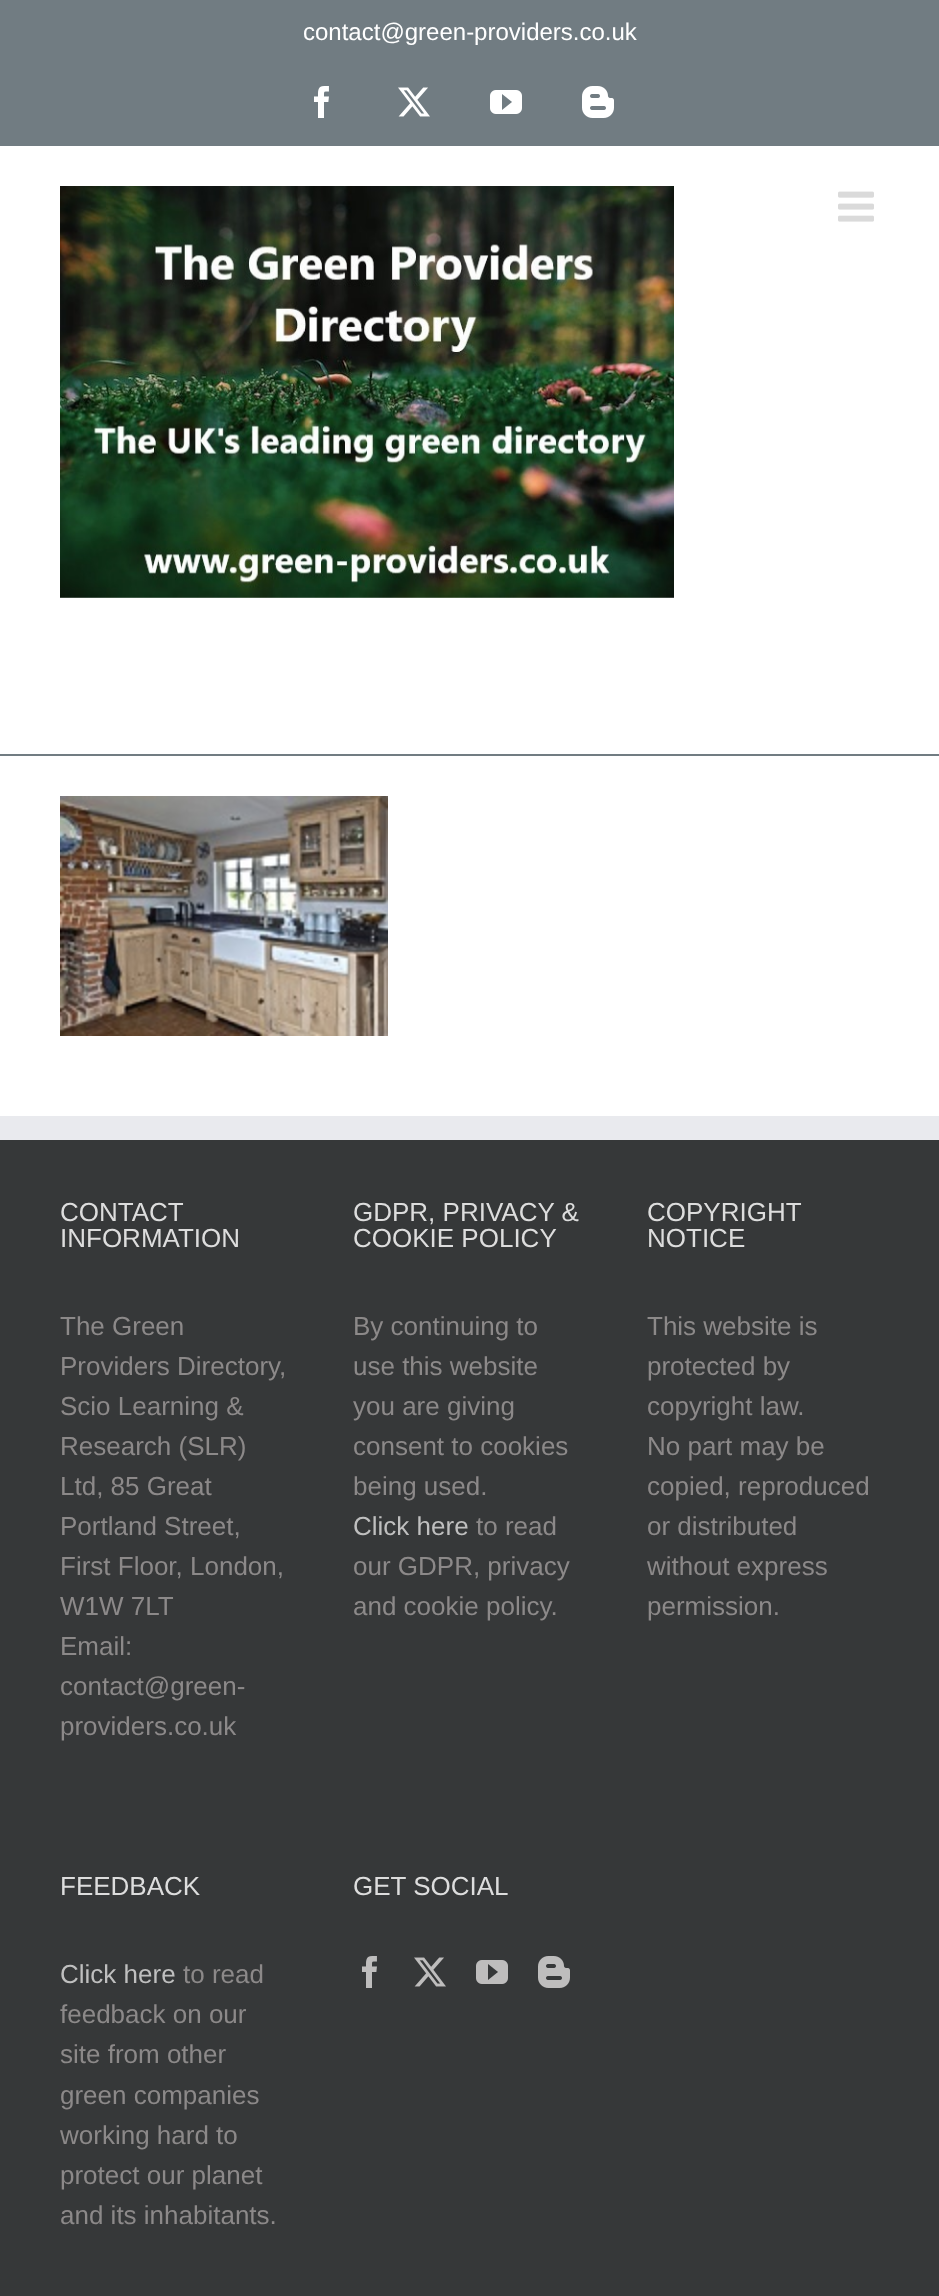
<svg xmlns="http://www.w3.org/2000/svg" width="939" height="2296">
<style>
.a{font:24px Liberation Sans;fill:#fff}
.b{font:26px Liberation Sans;fill:#ddd}
.c{font:26px Liberation Sans;fill:#8c8989}
.d{font:26px Liberation Sans;fill:#bfbfbf}
</style>
<rect width="100%" height="100%" fill="#fff"/>
<path fill="#717c82" d="M0 0h939v146H0z"/>
<image href="1.png" x="314" y="86" width="15" height="32"/>
<image href="2.png" x="398" y="87" width="32" height="30"/>
<image href="3.png" x="490" y="90" width="32" height="24"/>
<image href="4.png" x="582" y="86" width="32" height="32"/>
<path fill="#717c82" d="M0 754h939v2H0z"/>
<image href="5.png" x="60" y="186" width="614" height="412"/>
<image href="6.png" x="838" y="191" width="36" height="31"/>
<image href="7.png" x="60" y="796" width="328" height="240"/>
<path fill="#363839" d="M0 1140h939v1156H0z"/>
<path fill="#e9eaee" d="M0 1116h939v24H0z"/>
<image href="8.png" x="362" y="1956" width="15" height="32"/>
<image href="9.png" x="414" y="1957" width="32" height="30"/>
<image href="10.png" x="476" y="1960" width="32" height="24"/>
<image href="11.png" x="538" y="1956" width="32" height="32"/>
<text class="a" x="303" y="40">contact@green-providers.co.uk</text>
<text class="b" x="60" y="1221">CONTACT</text>
<text class="b" x="60" y="1247">INFORMATION</text>
<text class="c" x="60" y="1335">The Green</text>
<text class="c" x="60" y="1375">Providers Directory,</text>
<text class="c" x="60" y="1415">Scio Learning &amp;</text>
<text class="c" x="60" y="1455">Research (SLR)</text>
<text class="c" x="60" y="1495">Ltd, 85 Great</text>
<text class="c" x="60" y="1535">Portland Street,</text>
<text class="c" x="60" y="1575">First Floor, London,</text>
<text class="c" x="60" y="1615">W1W 7LT</text>
<text class="c" x="60" y="1655">Email:</text>
<text class="c" x="60" y="1695">contact@green-</text>
<text class="c" x="60" y="1735">providers.co.uk</text>
<text class="b" x="353" y="1221">GDPR, PRIVACY &amp;</text>
<text class="b" x="353" y="1247">COOKIE POLICY</text>
<text class="c" x="353" y="1335">By continuing to</text>
<text class="c" x="353" y="1375">use this website</text>
<text class="c" x="353" y="1415">you are giving</text>
<text class="c" x="353" y="1455">consent to cookies</text>
<text class="c" x="353" y="1495">being used.</text>
<text class="d" x="353" y="1535">Click here</text>
<text class="c" x="476" y="1535">to read</text>
<text class="c" x="353" y="1575">our GDPR, privacy</text>
<text class="c" x="353" y="1615">and cookie policy.</text>
<text class="b" x="647" y="1221">COPYRIGHT</text>
<text class="b" x="647" y="1247">NOTICE</text>
<text class="c" x="647" y="1335">This website is</text>
<text class="c" x="647" y="1375">protected by</text>
<text class="c" x="647" y="1415">copyright law.</text>
<text class="c" x="647" y="1455">No part may be</text>
<text class="c" x="647" y="1495">copied, reproduced</text>
<text class="c" x="647" y="1535">or distributed</text>
<text class="c" x="647" y="1575">without express</text>
<text class="c" x="647" y="1615">permission.</text>
<text class="b" x="60" y="1895">FEEDBACK</text>
<text class="d" x="60" y="1983">Click here</text>
<text class="c" x="183" y="1983">to read</text>
<text class="c" x="60" y="2023">feedback on our</text>
<text class="c" x="60" y="2063">site from other</text>
<text class="c" x="60" y="2104">green companies</text>
<text class="c" x="60" y="2144">working hard to</text>
<text class="c" x="60" y="2184">protect our planet</text>
<text class="c" x="60" y="2224">and its inhabitants.</text>
<text class="b" x="353" y="1895">GET SOCIAL</text>
</svg>
